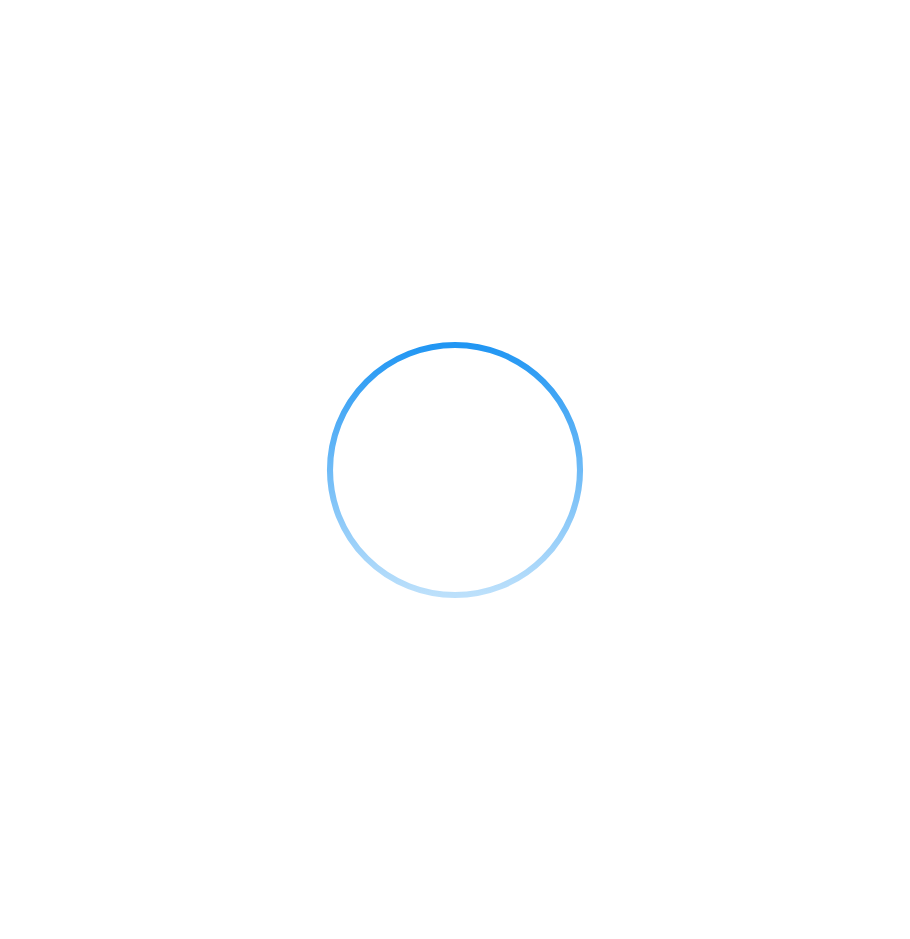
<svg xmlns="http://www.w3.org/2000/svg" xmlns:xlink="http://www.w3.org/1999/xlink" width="910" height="939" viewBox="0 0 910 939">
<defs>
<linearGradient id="g1" gradientUnits="userSpaceOnUse" x1="455" y1="345" x2="455" y2="595"><stop offset="0" stop-color="#2196f3"/><stop offset="1" stop-color="#bce0fb"/></linearGradient>
</defs>
<rect width="100%" height="100%" fill="#ffffff"/>
<circle fill="none" stroke="url(#g1)" stroke-width="6.1" cx="455" cy="470" r="125"/>
</svg>
